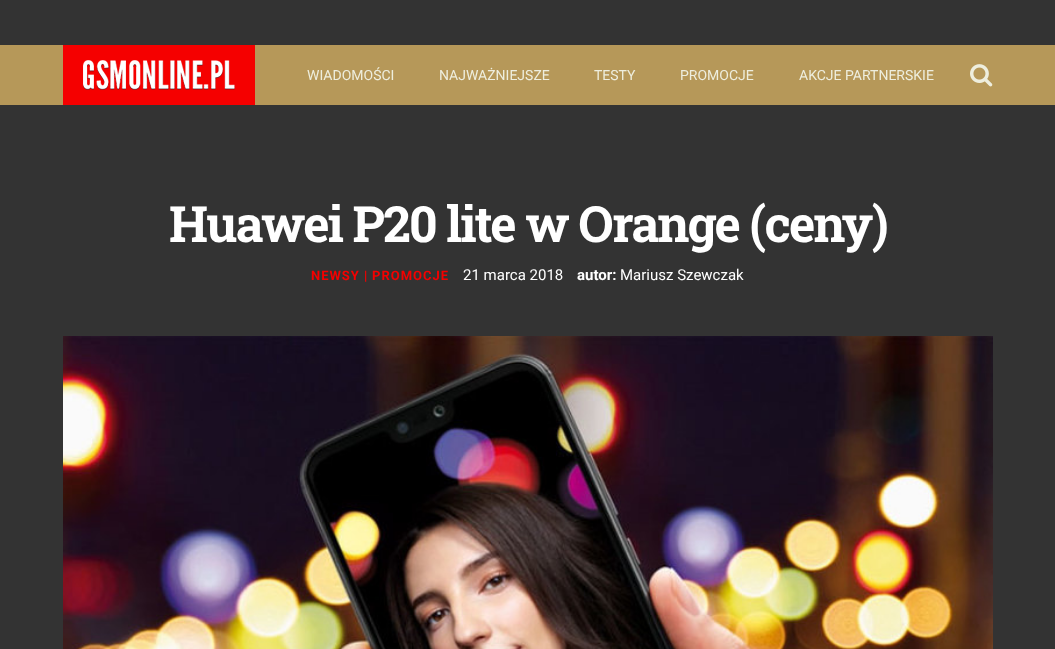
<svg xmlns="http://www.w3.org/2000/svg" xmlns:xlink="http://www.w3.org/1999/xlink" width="1055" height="649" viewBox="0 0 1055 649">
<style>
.cls-1{font:14px Roboto;fill:#eeeede}
.cls-2{font:bold 50px Roboto Slab;letter-spacing:-1.8px;fill:#ffffff}
.cls-3{font:bold 13px Roboto;letter-spacing:1px;fill:#f50000}
.cls-4{font:15px Roboto;fill:#ffffff}
.cls-5{font:bold 15px Roboto;fill:#ffffff}
</style>
<rect width="100%" height="100%" fill="#333333"/>
<rect fill="#b69859" x="0" y="45" width="1055" height="60"/>
<rect fill="#f50000" x="63" y="45" width="192" height="60"/>
<image xlink:href="image0.png" x="83" y="60" width="152" height="30"/>
<image xlink:href="image1.png" x="970" y="64" width="23" height="23"/>
<image xlink:href="image2.png" x="63" y="336" width="930" height="313"/>
<text class="cls-1" x="307" y="80">WIADOMOŚCI</text>
<text class="cls-1" x="439" y="80">NAJWAŻNIEJSZE</text>
<text class="cls-1" x="594" y="80">TESTY</text>
<text class="cls-1" x="680" y="80">PROMOCJE</text>
<text class="cls-1" x="799" y="80">AKCJE PARTNERSKIE</text>
<text class="cls-2" x="169" y="242">Huawei P20 lite w Orange (ceny)</text>
<text class="cls-3" x="311" y="280">NEWSY</text>
<text class="cls-3" x="364" y="280">|</text>
<text class="cls-3" x="372" y="280">PROMOCJE</text>
<text class="cls-4" x="463" y="280">21 marca 2018</text>
<text class="cls-5" x="577" y="280">autor:</text>
<text class="cls-4" x="620" y="280">Mariusz Szewczak</text>
</svg>
